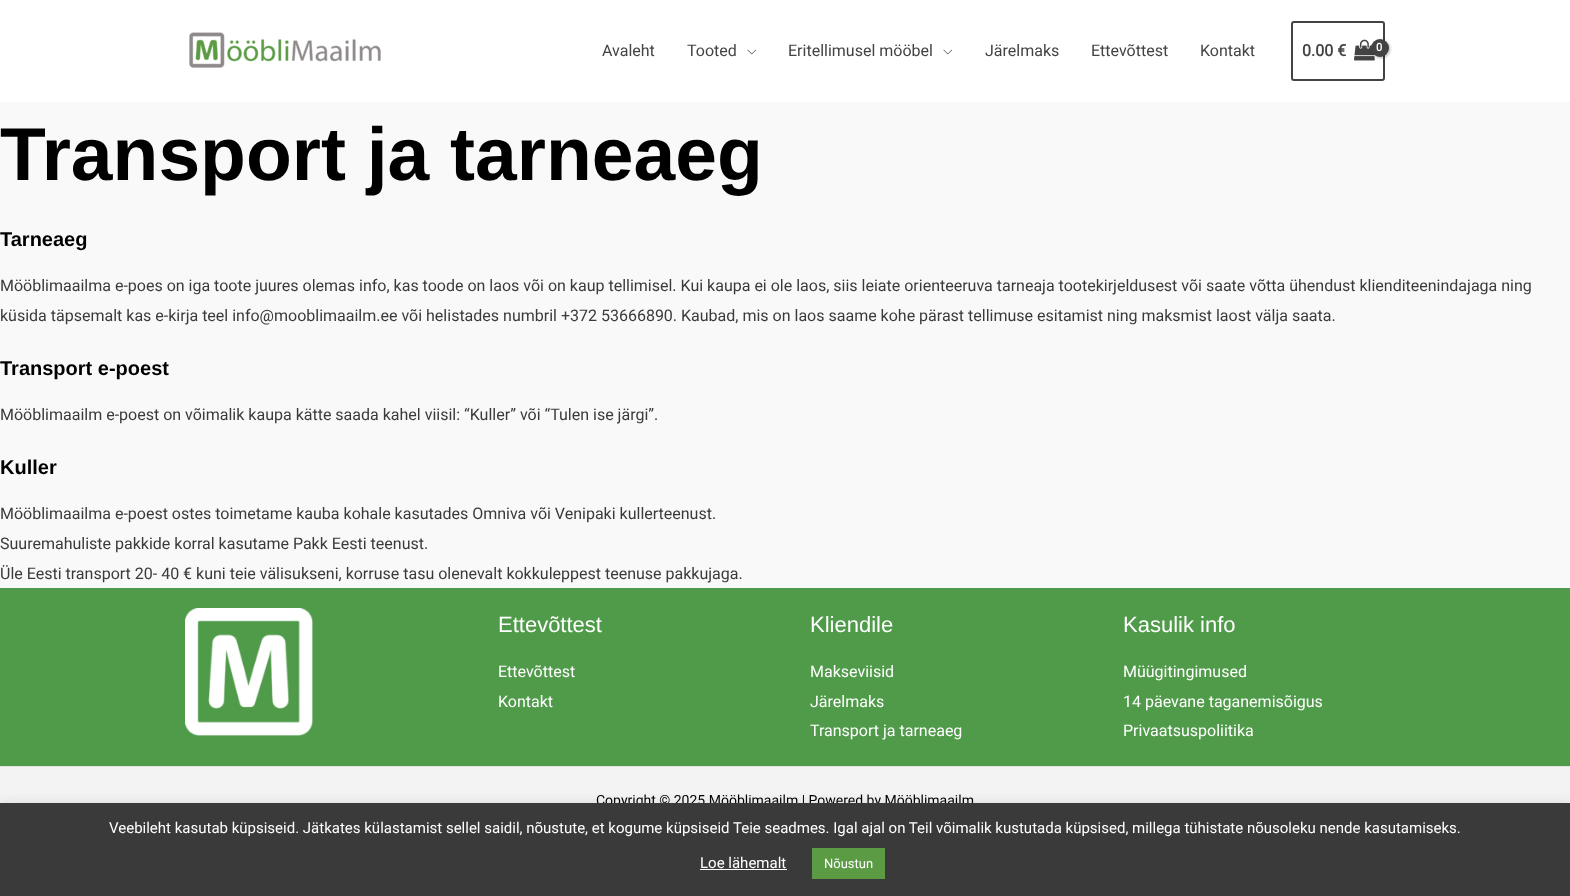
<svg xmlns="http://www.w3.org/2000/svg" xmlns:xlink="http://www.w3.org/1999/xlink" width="1570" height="896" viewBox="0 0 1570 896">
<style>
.cls-1{font:16px Roboto;fill:#434343}
.cls-2{font:bold 16px Roboto;fill:#434343}
.cls-3{font:bold 11px Roboto;fill:#ffffff}
.cls-4{font:bold 75px Liberation Sans;fill:#000000}
.cls-5{font:bold 20px Liberation Sans;fill:#000000}
.cls-6{font:16px Roboto;fill:#3a3a3a}
.cls-7{font:22px Liberation Sans;fill:#ffffff}
.cls-8{font:16px Roboto;fill:#ffffff}
.cls-9{font:14px Roboto;fill:#000000}
.cls-10{font:15px Roboto;fill:#ffffff}
.cls-11{font:13px Roboto;fill:#ffffff}
</style>
<rect width="100%" height="100%" fill="#f9f9f9"/>
<rect fill="#ffffff" x="0" y="0" width="1570" height="102"/>
<image xlink:href="image0.png" x="189" y="32" width="192" height="36"/>
<image xlink:href="image1.png" x="747" y="49" width="9" height="6"/>
<image xlink:href="image1.png" x="943" y="49" width="9" height="6"/>
<rect fill="none" stroke="#434343" stroke-width="2" x="1292" y="22" width="92" height="58" rx="2"/>
<image xlink:href="image2.png" x="1354" y="39" width="21" height="22"/>
<rect fill="#000000" fill-opacity="0.3" filter="blur(1.5px)" x="1372" y="40" width="18" height="18" rx="9"/>
<circle fill="#434343" cx="1380" cy="48" r="9"/>
<rect fill="#509b4a" x="0" y="588" width="1570" height="178"/>
<image xlink:href="image3.png" x="185" y="608" width="128" height="128"/>
<rect fill="#f3f3f4" x="0" y="767" width="1570" height="36"/>
<rect fill="#e4e4e5" x="0" y="766" width="1570" height="1"/>
<rect fill="#acabab" fill-opacity="0.3" filter="blur(5px)" x="0" y="802" width="1570" height="93"/>
<text class="cls-1" x="602" y="56">Avaleht</text>
<text class="cls-1" x="687" y="56">Tooted</text>
<text class="cls-1" x="788" y="56">Eritellimusel mööbel</text>
<text class="cls-1" x="985" y="56">Järelmaks</text>
<text class="cls-1" x="1091" y="56">Ettevõttest</text>
<text class="cls-1" x="1200" y="56">Kontakt</text>
<text class="cls-2" x="1302" y="56">0.00 €</text>
<text class="cls-3" x="1376" y="51">0</text>
<text class="cls-4" x="0" y="180">Transport ja tarneaeg</text>
<text class="cls-5" x="0" y="246">Tarneaeg</text>
<text class="cls-6"><tspan x="0" y="291">Mööblimaailma e-poes on iga toote juures olemas info, kas toode on laos või on kaup tellimisel. Kui kaupa ei ole laos, siis leiate orienteeruva tarneaja tootekirjeldusest või saate võtta ühendust klienditeenindajaga ning</tspan><tspan x="0" y="321">küsida täpsemalt kas e-kirja teel info@mooblimaailm.ee või helistades numbril +372 53666890. Kaubad, mis on laos saame kohe pärast tellimuse esitamist ning maksmist laost välja saata.</tspan></text>
<text class="cls-5" x="0" y="375">Transport e-poest</text>
<text class="cls-6" x="0" y="420">Mööblimaailm e-poest on võimalik kaupa kätte saada kahel viisil: “Kuller” või “Tulen ise järgi”.</text>
<text class="cls-5" x="0" y="474">Kuller</text>
<text class="cls-6"><tspan x="0" y="519">Mööblimaailma e-poest ostes toimetame kauba kohale kasutades Omniva või Venipaki kullerteenust.</tspan><tspan x="0" y="549">Suuremahuliste pakkide korral kasutame Pakk Eesti teenust.</tspan><tspan x="0" y="579">Üle Eesti transport 20- 40 € kuni teie välisukseni, korruse tasu olenevalt kokkuleppest teenuse pakkujaga.</tspan></text>
<text class="cls-7" x="498" y="632">Ettevõttest</text>
<text class="cls-8"><tspan x="498" y="677">Ettevõttest</tspan><tspan x="498" y="707">Kontakt</tspan></text>
<text class="cls-7" x="810" y="632">Kliendile</text>
<text class="cls-8"><tspan x="810" y="677">Makseviisid</tspan><tspan x="810" y="707">Järelmaks</tspan><tspan x="810" y="736">Transport ja tarneaeg</tspan></text>
<text class="cls-7" x="1123" y="632">Kasulik info</text>
<text class="cls-8"><tspan x="1123" y="677">Müügitingimused</tspan><tspan x="1123" y="707">14 päevane taganemisõigus</tspan><tspan x="1123" y="736">Privaatsuspoliitika</tspan></text>
<text class="cls-9" x="596" y="805">Copyright © 2025 Mööblimaailm | Powered by Mööblimaailm</text>
<rect fill="#3a3a3a" x="0" y="803" width="1570" height="93"/>
<text class="cls-10" x="109" y="833">Veebileht kasutab küpsiseid. Jätkates külastamist sellel saidil, nõustute, et kogume küpsiseid Teie seadmes. Igal ajal on Teil võimalik kustutada küpsised, millega tühistate nõusoleku nende kasutamiseks.</text>
<text class="cls-10" x="700" y="868">Loe lähemalt</text>
<rect fill="#ffffff" x="700" y="869" width="87" height="1"/>
<rect fill="#5a9b43" x="812" y="848" width="73" height="31"/>
<text class="cls-11" x="824" y="868">Nõustun</text>
</svg>
